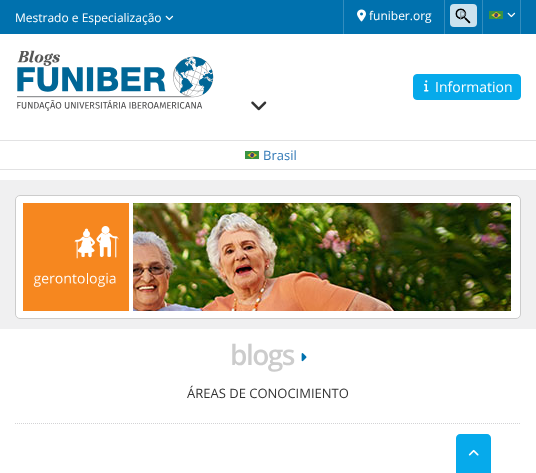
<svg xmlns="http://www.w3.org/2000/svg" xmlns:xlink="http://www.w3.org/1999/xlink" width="536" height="473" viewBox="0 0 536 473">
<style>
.cls-1{font:12px Open Sans;fill:#ffffff}
.cls-2{font:12px Open Sans;fill:#85939b}
.cls-3{font:14px Open Sans;fill:#ffffff}
.cls-4{font:13px Open Sans;fill:#337ab7}
.cls-5{font:600 28px Open Sans;letter-spacing:-1.5px;fill:#cccccc}
.cls-6{font:13px Open Sans;fill:#333333}
</style>
<rect width="100%" height="100%" fill="#ffffff"/>
<rect fill="#0071ae" x="0" y="0" width="536" height="34"/>
<image xlink:href="image0.png" x="165" y="15" width="9" height="6"/>
<rect fill="#338dbe" x="444" y="0" width="1" height="34"/>
<rect fill="#338dbe" x="343" y="0" width="1" height="34"/>
<image xlink:href="image1.png" x="357" y="9" width="9" height="13"/>
<rect fill="#cce2ee" x="450" y="4" width="27" height="23" rx="4"/>
<image xlink:href="image2.png" x="455" y="8" width="16" height="16"/>
<rect fill="#338dbe" x="520" y="0" width="1" height="34"/>
<rect fill="#338dbe" x="482" y="0" width="1" height="34"/>
<image xlink:href="image3.png" x="489" y="11" width="14" height="8"/>
<image xlink:href="image0.png" x="507" y="12" width="9" height="6"/>
<image xlink:href="image4.png" x="17" y="50" width="197" height="61"/>
<rect fill="#06aaeb" stroke="#06aaeb" x="413.5" y="74.5" width="107" height="25" rx="3.5"/>
<image xlink:href="image5.png" x="424" y="80" width="5" height="12"/>
<image xlink:href="image6.png" x="251" y="101" width="16" height="10"/>
<rect fill="#e2e2e3" x="0" y="140" width="536" height="1"/>
<rect fill="#e2e2e3" x="0" y="169" width="536" height="1"/>
<image xlink:href="image3.png" x="245" y="151" width="14" height="8"/>
<rect fill="#f0f0f1" x="0" y="180" width="536" height="149"/>
<rect fill="#ffffff" stroke="#cccccc" x="15.5" y="195.5" width="505" height="123" rx="4.5"/>
<rect fill="#f6871f" x="23" y="203" width="106" height="108"/>
<image xlink:href="image7.png" x="33" y="226" width="86" height="61"/>
<image xlink:href="image8.png" x="133" y="203" width="378" height="108"/>
<path fill="none" stroke="#d3d3d5" stroke-dasharray="1 1" d="M15 423.5H521"/>
<image xlink:href="image9.png" x="301" y="353" width="6" height="9"/>
<path fill="#06aaeb" d="M460 434H487C489 434 491 436 491 438V473H456V438C456 436 458 434 460 434Z"/>
<image xlink:href="image10.png" x="468" y="449" width="11" height="7"/>
<text class="cls-1" x="15" y="22">Mestrado e Especialização</text>
<text class="cls-1" x="369" y="20">funiber.org</text>
<text class="cls-2" x="459" y="20">P</text>
<text class="cls-3" x="435" y="92">Information</text>
<text class="cls-4" x="263" y="160">Brasil</text>
<text class="cls-5" x="230" y="365">blogs</text>
<text class="cls-6" x="187" y="398">ÁREAS DE CONOCIMIENTO</text>
</svg>
